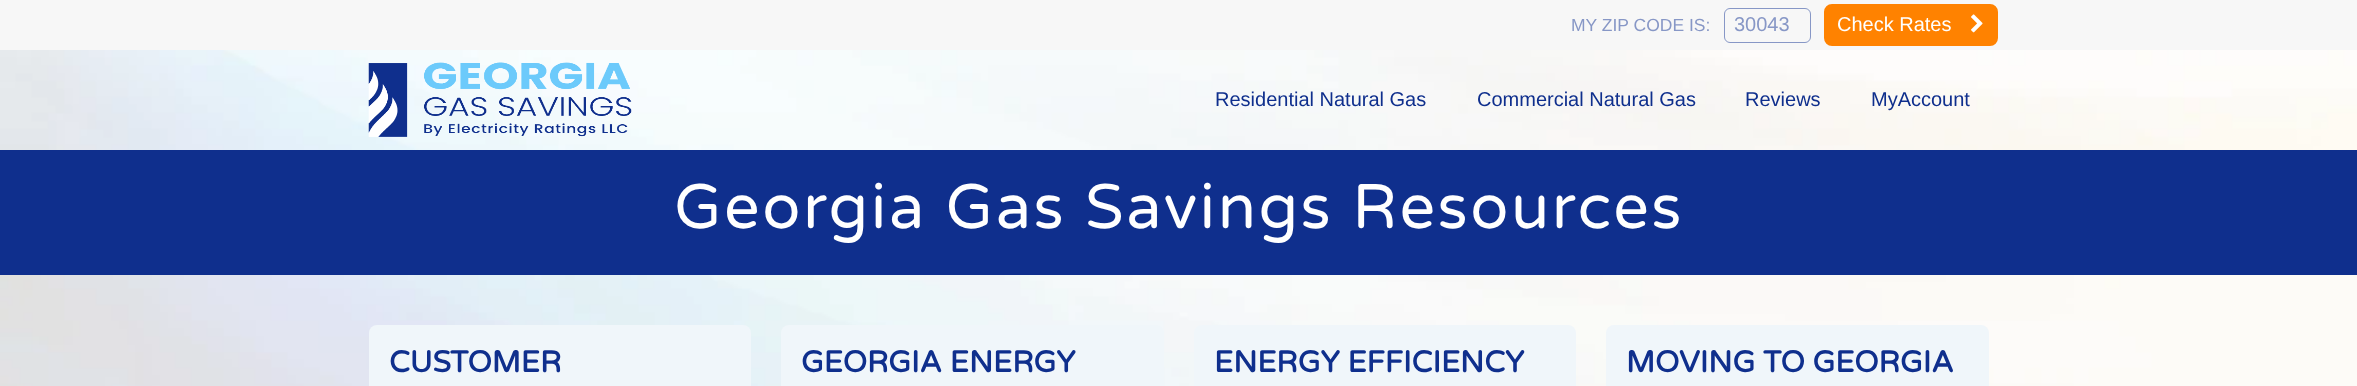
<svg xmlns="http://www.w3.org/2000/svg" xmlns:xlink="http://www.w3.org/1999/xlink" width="2357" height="386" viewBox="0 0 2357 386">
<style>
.cls-1{font:17.5px Liberation Sans;fill:#8797c6}
.cls-2{font:20px Liberation Sans;fill:#8797c6}
.cls-3{font:20px Liberation Sans;fill:#ffffff}
.cls-4{font:20px Liberation Sans;fill:#0f2f8d}
.cls-5{font:62.9px Varela Round;letter-spacing:2.5px;fill:#ffffff}
.cls-6{font:bold 30px Varela Round;fill:#0f2f8d}
</style>
<rect width="100%" height="100%" fill="#ffffff"/>
<image xlink:href="image0.png" x="0" y="50" width="2357" height="336"/>
<rect fill="#f7f7f7" x="0" y="0" width="2357" height="50"/>
<rect fill="none" stroke="#8797c6" x="1724.5" y="8.5" width="86" height="34" rx="5.5"/>
<rect fill="#ff8200" stroke="#ff8200" stroke-width="4" x="1826" y="6" width="170" height="38" rx="6"/>
<image xlink:href="image1.png" x="1971" y="14" width="12" height="19"/>
<image xlink:href="image2.png" x="368" y="62" width="264" height="75"/>
<rect fill="#0f2f8d" x="0" y="150" width="2357" height="125"/>
<rect fill="#f0f6fa" x="369" y="325" width="382" height="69" rx="8"/>
<rect fill="#f0f6fa" x="781" y="325" width="383" height="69" rx="8"/>
<rect fill="#f0f6fa" x="1194" y="325" width="382" height="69" rx="8"/>
<rect fill="#f0f6fa" x="1606" y="325" width="383" height="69" rx="8"/>
<text class="cls-1" x="1571" y="31">MY ZIP CODE IS:</text>
<text class="cls-2" x="1734" y="31">30043</text>
<text class="cls-3" x="1837" y="31">Check Rates</text>
<text class="cls-4" x="1215" y="106">Residential Natural Gas</text>
<text class="cls-4" x="1477" y="106">Commercial Natural Gas</text>
<text class="cls-4" x="1745" y="106">Reviews</text>
<text class="cls-4" x="1871" y="106">MyAccount</text>
<text class="cls-5" x="674" y="228">Georgia Gas Savings Resources</text>
<text class="cls-6" x="389" y="372">CUSTOMER</text>
<text class="cls-6" x="801" y="372">GEORGIA ENERGY</text>
<text class="cls-6" x="1214" y="372">ENERGY EFFICIENCY</text>
<text class="cls-6" x="1626" y="372">MOVING TO GEORGIA</text>
</svg>
